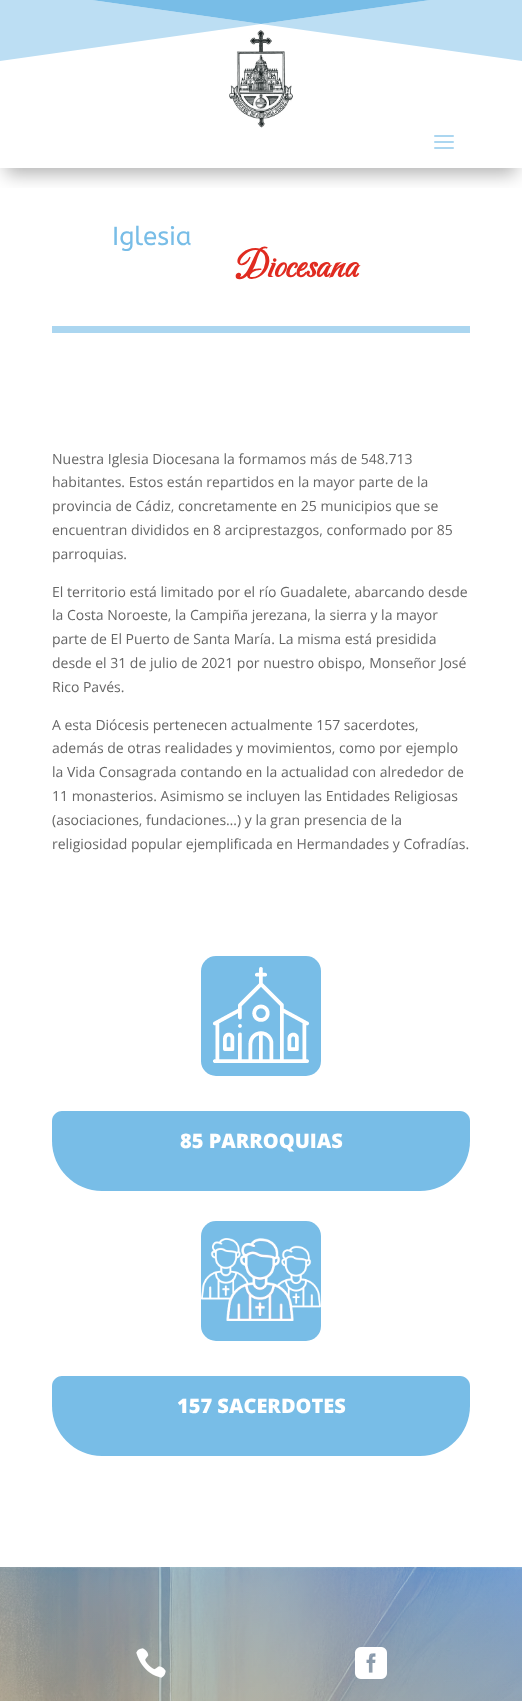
<svg xmlns="http://www.w3.org/2000/svg" xmlns:xlink="http://www.w3.org/1999/xlink" width="522" height="1701" viewBox="0 0 522 1701">
<style>
.cls-1{font:26px ABeeZee;fill:#78bde7}
.cls-2{font:bold 39px Carattere;fill:#e02b20}
.cls-3{font:14px Open Sans;fill:#666666}
.cls-4{font:800 20px Open Sans;fill:#ffffff}
</style>
<defs>
<clipPath id="clip1"><rect x="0" y="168" width="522" height="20"/></clipPath>
</defs>
<rect width="100%" height="100%" fill="#ffffff"/>
<g clip-path="url(#clip1)">
<rect fill="#000000" fill-opacity="0.3" filter="blur(9px)" x="6" y="5" width="510" height="169"/>
</g>
<path fill="#bcdef3" d="M522-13L261 24L0-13V61L261 24L522 61Z"/>
<path fill="#78bde7" d="M522-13H0L261 24Z"/>
<image xlink:href="image0.png" x="229" y="30" width="64" height="98"/>
<image xlink:href="image1.png" x="434" y="135" width="20" height="14"/>
<rect fill="#abd6f0" x="52" y="326" width="418" height="7"/>
<rect fill="#78bde7" x="201" y="956" width="120" height="120" rx="15"/>
<image xlink:href="image2.png" x="213" y="967" width="96" height="96"/>
<path fill="#78bde7" d="M62 1111H460C465.5 1111 470 1115.5 470 1121V1141C470 1168.5 447.5 1191 420 1191H102C74.5 1191 52 1168.5 52 1141V1121C52 1115.5 56.5 1111 62 1111Z"/>
<rect fill="#78bde7" x="201" y="1221" width="120" height="120" rx="15"/>
<image xlink:href="image3.png" x="201" y="1238" width="120" height="83"/>
<path fill="#78bde7" d="M62 1376H460C465.5 1376 470 1380.5 470 1386V1406C470 1433.5 447.5 1456 420 1456H102C74.5 1456 52 1433.5 52 1406V1386C52 1380.5 56.5 1376 62 1376Z"/>
<image xlink:href="image4.png" x="0" y="1567" width="522" height="134"/>
<image xlink:href="image5.png" x="136" y="1648" width="30" height="30"/>
<image xlink:href="image6.png" x="355" y="1647" width="32" height="32"/>
<text class="cls-1" x="112" y="245">Iglesia</text>
<text class="cls-2" x="237" y="277">Diocesana</text>
<text class="cls-3"><tspan x="52" y="464">Nuestra Iglesia Diocesana la formamos más de 548.713</tspan><tspan x="52" y="487">habitantes. Estos están repartidos en la mayor parte de la</tspan><tspan x="52" y="511">provincia de Cádiz, concretamente en 25 municipios que se</tspan><tspan x="52" y="535">encuentran divididos en 8 arciprestazgos, conformado por 85</tspan><tspan x="52" y="559">parroquias.</tspan></text>
<text class="cls-3"><tspan x="52" y="597">El territorio está limitado por el río Guadalete, abarcando desde</tspan><tspan x="52" y="620">la Costa Noroeste, la Campiña jerezana, la sierra y la mayor</tspan><tspan x="52" y="644">parte de El Puerto de Santa María. La misma está presidida</tspan><tspan x="52" y="668">desde el 31 de julio de 2021 por nuestro obispo, Monseñor José</tspan><tspan x="52" y="692">Rico Pavés.</tspan></text>
<text class="cls-3"><tspan x="52" y="730">A esta Diócesis pertenecen actualmente 157 sacerdotes,</tspan><tspan x="52" y="753">además de otras realidades y movimientos, como por ejemplo</tspan><tspan x="52" y="777">la Vida Consagrada contando en la actualidad con alrededor de</tspan><tspan x="52" y="801">11 monasterios. Asimismo se incluyen las Entidades Religiosas</tspan><tspan x="52" y="825">(asociaciones, fundaciones…) y la gran presencia de la</tspan><tspan x="52" y="849">religiosidad popular ejemplificada en Hermandades y Cofradías.</tspan></text>
<text class="cls-4" x="180" y="1148">85 PARROQUIAS</text>
<text class="cls-4" x="177" y="1413">157 SACERDOTES</text>
</svg>
